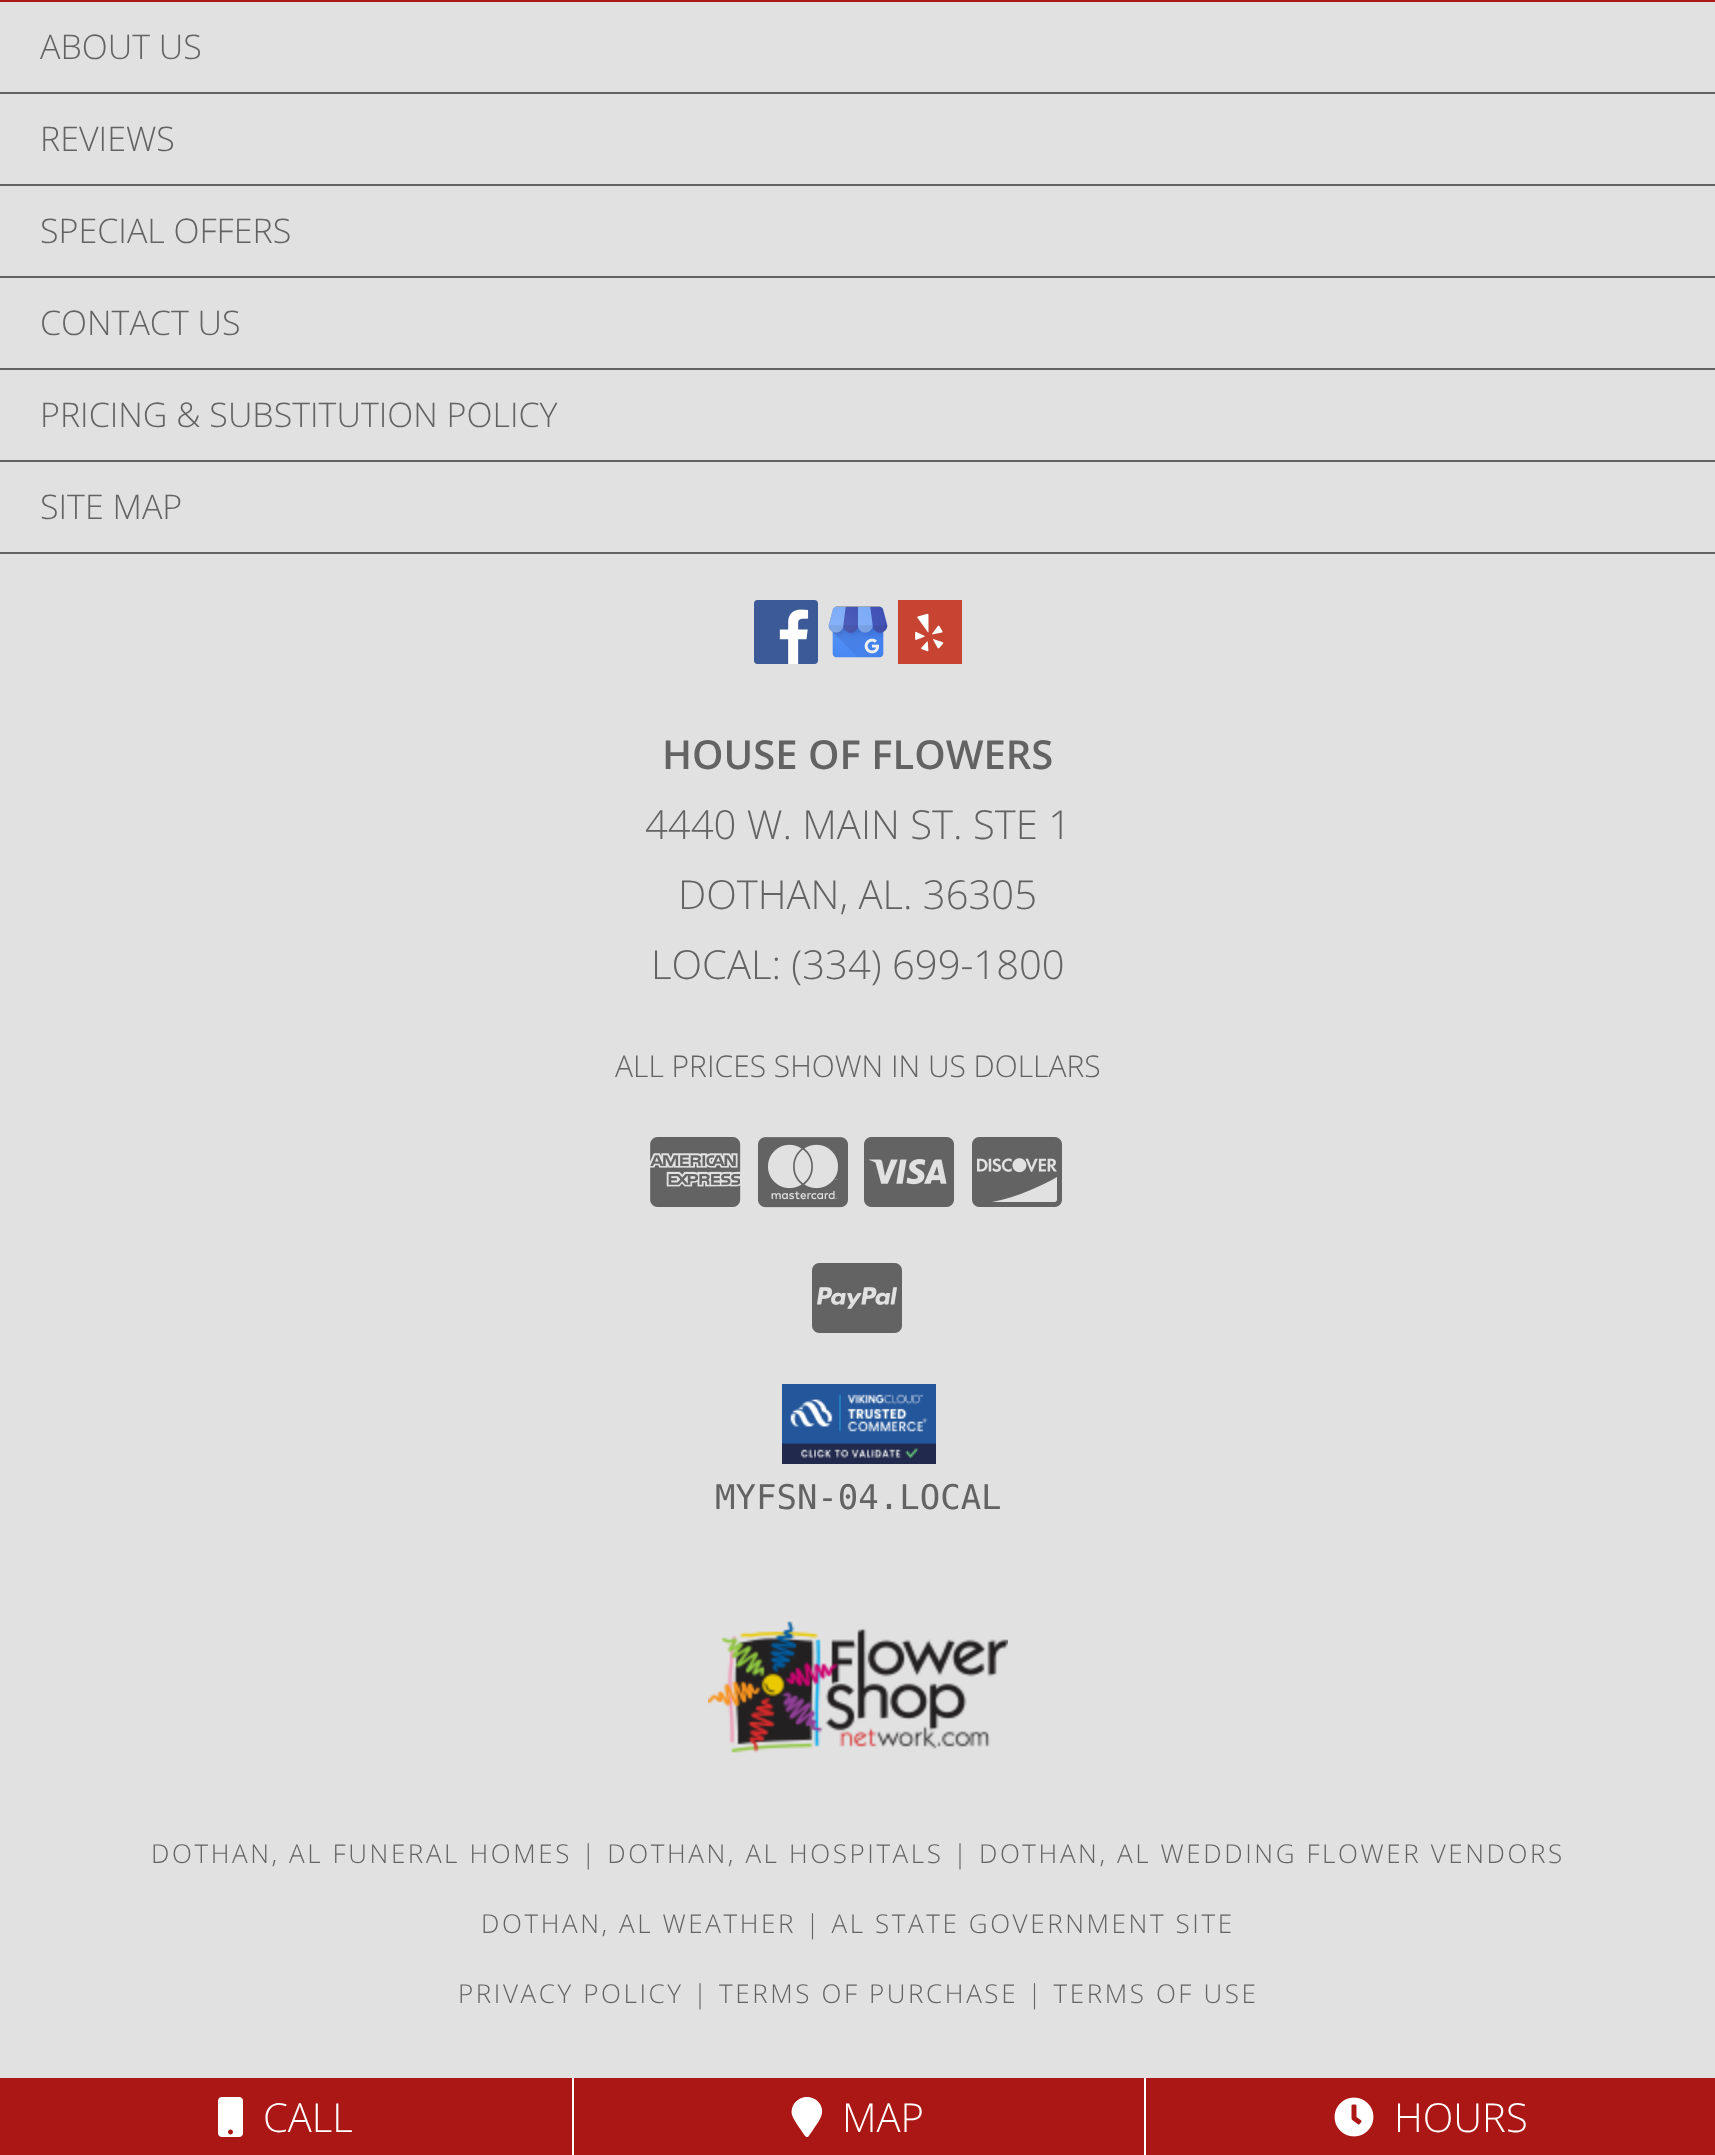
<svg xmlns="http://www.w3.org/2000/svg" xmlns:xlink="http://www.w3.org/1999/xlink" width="1715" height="2155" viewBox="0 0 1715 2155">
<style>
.cls-1{font:300 34px Open Sans;fill:#636363}
.cls-2{font:600 40px Open Sans;fill:#636363}
.cls-3{font:300 40px Open Sans;fill:#636363}
.cls-4{font:300 30px Open Sans;fill:#636363}
.cls-5{font:34px DejaVu Sans Mono;fill:#636363}
.cls-6{font:300 26px Open Sans;letter-spacing:2.6px;fill:#636363}
.cls-7{font:300 40px Open Sans;fill:#ffffff}
</style>
<rect width="100%" height="100%" fill="#aa1714"/>
<rect fill="#e1e1e1" x="0" y="2" width="1715" height="2076"/>
<rect fill="#636363" x="0" y="92" width="1715" height="2"/>
<rect fill="#636363" x="0" y="184" width="1715" height="2"/>
<rect fill="#636363" x="0" y="276" width="1715" height="2"/>
<rect fill="#636363" x="0" y="368" width="1715" height="2"/>
<rect fill="#636363" x="0" y="460" width="1715" height="2"/>
<rect fill="#636363" x="0" y="552" width="1715" height="2"/>
<image xlink:href="image0.png" x="754" y="600" width="64" height="64"/>
<image xlink:href="image1.png" x="828" y="606" width="60" height="52"/>
<image xlink:href="image2.png" x="898" y="600" width="64" height="64"/>
<image xlink:href="image3.png" x="650" y="1137" width="91" height="70"/>
<image xlink:href="image4.png" x="758" y="1137" width="90" height="71"/>
<image xlink:href="image5.png" x="864" y="1137" width="90" height="70"/>
<image xlink:href="image6.png" x="972" y="1137" width="90" height="70"/>
<image xlink:href="image7.png" x="812" y="1263" width="90" height="70"/>
<image xlink:href="image8.png" x="782" y="1384" width="154" height="80"/>
<image xlink:href="image9.png" x="708" y="1621" width="300" height="132"/>
<image xlink:href="image10.png" x="218" y="2097" width="25" height="40"/>
<rect fill="#ffffff" x="572" y="2078" width="2" height="77"/>
<path fill="#ffffff" d="M805 2136C802 2131 794 2121 792 2115C789 2099 810 2090 820 2104C826 2114 818 2122 813 2130L808 2137C807 2137 806 2137 805 2136Z"/>
<rect fill="#ffffff" x="1144" y="2078" width="2" height="77"/>
<image xlink:href="image11.png" x="1334" y="2097" width="40" height="40"/>
<text class="cls-1" x="40" y="59">ABOUT US</text>
<text class="cls-1" x="40" y="151">REVIEWS</text>
<text class="cls-1" x="40" y="243">SPECIAL OFFERS</text>
<text class="cls-1" x="40" y="335">CONTACT US</text>
<text class="cls-1" x="40" y="427">PRICING &amp; SUBSTITUTION POLICY</text>
<text class="cls-1" x="40" y="519">SITE MAP</text>
<text class="cls-2" x="662" y="769">HOUSE OF FLOWERS</text>
<text class="cls-3" x="645" y="839">4440 W. MAIN ST. STE 1</text>
<text class="cls-3" x="678" y="909">DOTHAN, AL. 36305</text>
<text class="cls-3" x="651" y="979">LOCAL: (334) 699-1800</text>
<text class="cls-4" x="615" y="1077">ALL PRICES SHOWN IN US DOLLARS</text>
<text class="cls-5" x="715" y="1509">MYFSN-04.LOCAL</text>
<text class="cls-6" x="151" y="1863">DOTHAN, AL FUNERAL HOMES | DOTHAN, AL HOSPITALS | DOTHAN, AL WEDDING FLOWER VENDORS</text>
<text class="cls-6" x="481" y="1933">DOTHAN, AL WEATHER | AL STATE GOVERNMENT SITE</text>
<text class="cls-6" x="458" y="2003">PRIVACY POLICY | TERMS OF PURCHASE | TERMS OF USE</text>
<text class="cls-7" x="263" y="2132">CALL</text>
<text class="cls-7" x="842" y="2132">MAP</text>
<text class="cls-7" x="1394" y="2132">HOURS</text>
</svg>
